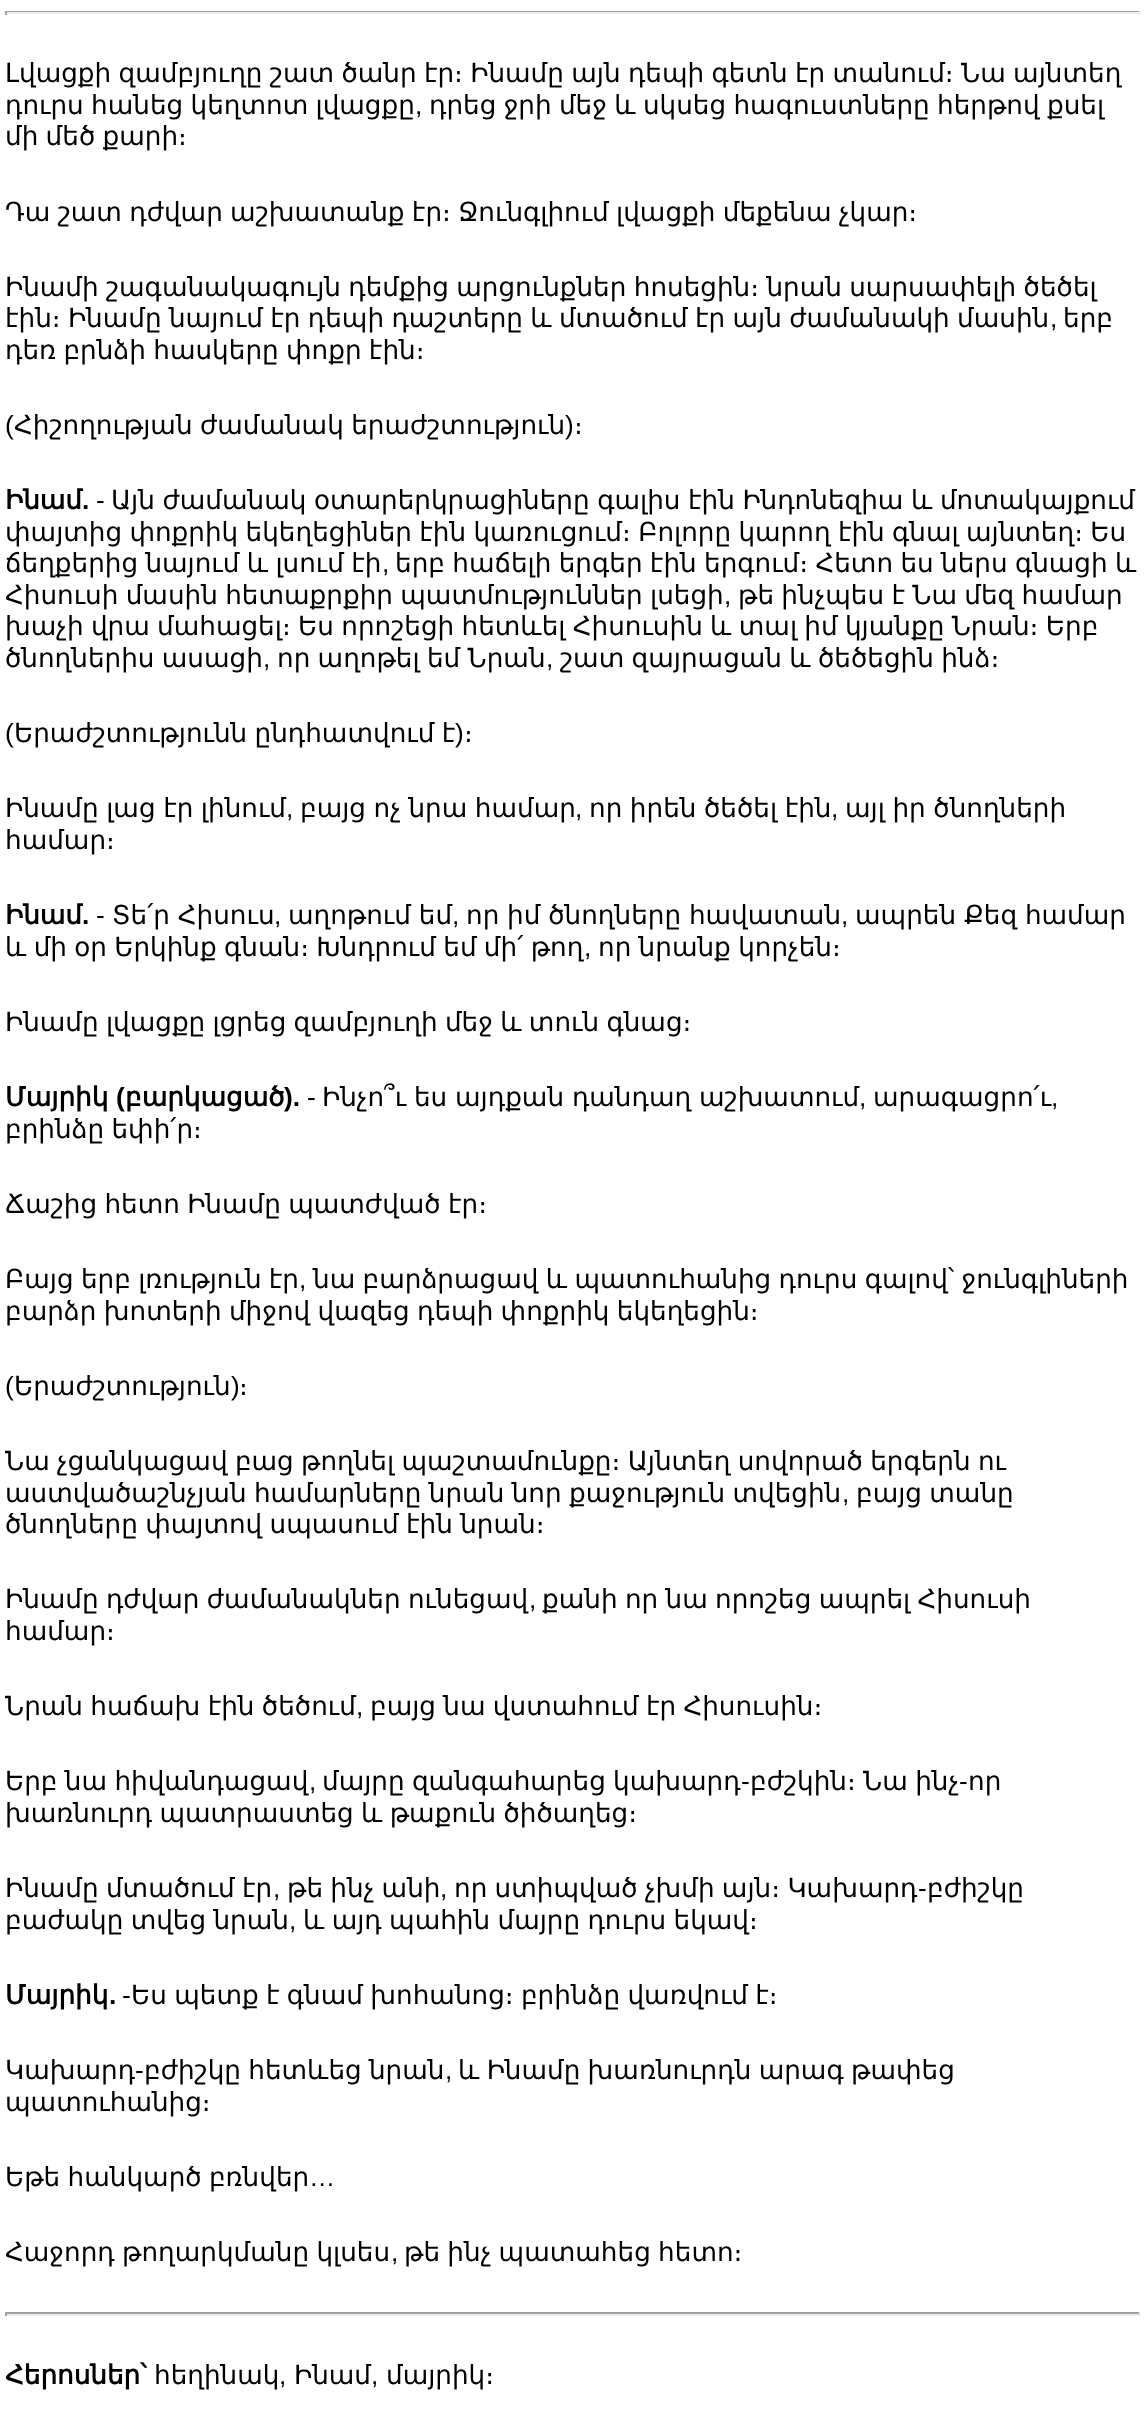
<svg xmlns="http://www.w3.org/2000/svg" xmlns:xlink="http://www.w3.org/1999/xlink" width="1146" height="2429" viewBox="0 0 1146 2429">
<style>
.cls-1{font:26.25px DejaVu Sans;fill:#000000}
.cls-2{font:26.25px Liberation Sans;fill:#000000}
.cls-3{font:bold 26.25px DejaVu Sans;fill:#000000}
.cls-4{font:bold 26.25px Liberation Sans;fill:#000000}
</style>
<rect width="100%" height="100%" fill="#ffffff"/>
<rect fill="#9f9f9f" x="5" y="11" width="1136" height="1"/>
<rect fill="#eeeeee" x="1139" y="11" width="2" height="4"/>
<rect fill="#eeeeee" x="5" y="12" width="1136" height="2"/>
<rect fill="#9f9f9f" x="5" y="11" width="2" height="4"/>
<rect fill="#9f9f9f" x="5" y="2312" width="1136" height="2"/>
<rect fill="#eeeeee" x="1139" y="2312" width="2" height="4"/>
<rect fill="#eeeeee" x="5" y="2314" width="1136" height="2"/>
<rect fill="#9f9f9f" x="5" y="2312" width="2" height="4"/>
<text class="cls-1"><tspan x="5" y="82" word-spacing="-1">Լվացքի զամբյուղը շատ ծանր էր։ Ինամը այն դեպի գետն էր տանում։ Նա այնտեղ</tspan><tspan x="5" y="114" word-spacing="-1">դուրս հանեց կեղտոտ լվացքը</tspan></text>
<text class="cls-2" x="415" y="114">,</text>
<text class="cls-1" x="429" y="114" word-spacing="-1">դրեց ջրի մեջ և սկսեց հագուստները հերթով քսել</text>
<text class="cls-1" x="5" y="145" word-spacing="-1">մի մեծ քարի։</text>
<text class="cls-1" x="5" y="221" word-spacing="-1">Դա շատ դժվար աշխատանք էր։ Ջունգլիում լվացքի մեքենա չկար։</text>
<text class="cls-1"><tspan x="5" y="296" word-spacing="-1">Ինամի շագանակագույն դեմքից արցունքներ հոսեցին։ նրան սարսափելի ծեծել</tspan><tspan x="5" y="327" word-spacing="-1">էին։ Ինամը նայում էր դեպի դաշտերը և մտածում էր այն ժամանակի մասին</tspan></text>
<text class="cls-2" x="1050" y="327">,</text>
<text class="cls-1" x="1063" y="327">երբ</text>
<text class="cls-1" x="5" y="359" word-spacing="-1">դեռ բրնձի հասկերը փոքր էին։</text>
<text class="cls-2" x="5" y="434">(</text>
<text class="cls-1" x="14" y="434" word-spacing="-1">Հիշողության ժամանակ երաժշտություն</text>
<text class="cls-2" x="565" y="434">)</text>
<text class="cls-1" x="574" y="434">։</text>
<text class="cls-3" x="5" y="509">Ինամ</text>
<text class="cls-2" x="96" y="509">-</text>
<text class="cls-1" x="111" y="509" word-spacing="-0.75">Այն ժամանակ օտարերկրացիները գալիս էին Ինդոնեզիա և մոտակայքում</text>
<text class="cls-4" x="82" y="509">.</text>
<text class="cls-1"><tspan x="5" y="541" word-spacing="-1">փայտից փոքրիկ եկեղեցիներ էին կառուցում։ Բոլորը կարող էին գնալ այնտեղ։ Ես</tspan><tspan x="5" y="572" word-spacing="-1">ճեղքերից նայում և լսում էի</tspan></text>
<text class="cls-2" x="382" y="572">,</text>
<text class="cls-1" x="395" y="572" word-spacing="-1">երբ հաճելի երգեր էին երգում։ Հետո ես ներս գնացի և</text>
<text class="cls-1" x="5" y="604" word-spacing="-1">Հիսուսի մասին հետաքրքիր պատմություններ լսեցի</text>
<text class="cls-2" x="724" y="604">,</text>
<text class="cls-1" x="738" y="604" word-spacing="-1">թե ինչպես է Նա մեզ համար</text>
<text class="cls-1"><tspan x="5" y="635" word-spacing="-1">խաչի վրա մահացել։ Ես որոշեցի հետևել Հիսուսին և տալ իմ կյանքը Նրան։ Երբ</tspan><tspan x="5" y="667" word-spacing="-1">ծնողներիս ասացի</tspan></text>
<text class="cls-2" x="263" y="667">,</text>
<text class="cls-1" x="277" y="667" word-spacing="-1">որ աղոթել եմ Նրան</text>
<text class="cls-2" x="546" y="667">,</text>
<text class="cls-1" x="560" y="667" word-spacing="-1">շատ զայրացան և ծեծեցին ինձ։</text>
<text class="cls-2" x="5" y="742">(</text>
<text class="cls-1" x="14" y="742" word-spacing="-1">Երաժշտությունն ընդհատվում է</text>
<text class="cls-2" x="455" y="742">)</text>
<text class="cls-1" x="464" y="742">։</text>
<text class="cls-1" x="5" y="817" word-spacing="-0.75">Ինամը լաց էր լինում</text>
<text class="cls-2" x="286" y="817">,</text>
<text class="cls-1" x="300" y="817" word-spacing="-0.75">բայց ոչ նրա համար</text>
<text class="cls-2" x="575" y="817">,</text>
<text class="cls-1" x="589" y="817" word-spacing="-0.75">որ իրեն ծեծել էին</text>
<text class="cls-2" x="831" y="817">,</text>
<text class="cls-1" x="845" y="817" word-spacing="-0.75">այլ իր ծնողների</text>
<text class="cls-1" x="5" y="849">համար։</text>
<text class="cls-3" x="5" y="924">Ինամ</text>
<text class="cls-2" x="96" y="924">-</text>
<text class="cls-1" x="112" y="924" word-spacing="-0.5">Տե՛ր Հիսուս</text>
<text class="cls-1" x="288" y="924" word-spacing="-0.5">աղոթում եմ</text>
<text class="cls-1" x="466" y="924" word-spacing="-0.5">որ իմ ծնողները հավատան</text>
<text class="cls-1" x="855" y="924" word-spacing="-0.5">ապրեն Քեզ համար</text>
<text class="cls-4" x="82" y="924">.</text>
<text class="cls-2" x="274" y="924">,</text>
<text class="cls-2" x="452" y="924">,</text>
<text class="cls-2" x="841" y="924">,</text>
<text class="cls-1" x="5" y="956" word-spacing="-1">և մի օր Երկինք գնան։ Խնդրում եմ մի՛ թող</text>
<text class="cls-2" x="584" y="956">,</text>
<text class="cls-1" x="598" y="956" word-spacing="-1">որ նրանք կորչեն։</text>
<text class="cls-1" x="5" y="1031" word-spacing="-1">Ինամը լվացքը լցրեց զամբյուղի մեջ և տուն գնաց։</text>
<text class="cls-3" x="5" y="1106">Մայրիկ</text>
<text class="cls-4" x="116" y="1106">(</text>
<text class="cls-3" x="125" y="1106">բարկացած</text>
<text class="cls-4" x="284" y="1106">).</text>
<text class="cls-2" x="307" y="1106">-</text>
<text class="cls-1" x="322" y="1106" word-spacing="-0.5">Ինչո՞ւ ես այդքան դանդաղ աշխատում</text>
<text class="cls-1" x="873" y="1106">արագացրո՛ւ</text>
<text class="cls-2" x="859" y="1106">,</text>
<text class="cls-2" x="1051" y="1106">,</text>
<text class="cls-1" x="5" y="1138" word-spacing="-1">բրինձը եփի՛ր։</text>
<text class="cls-1" x="5" y="1213" word-spacing="-1">Ճաշից հետո Ինամը պատժված էր։</text>
<text class="cls-1" x="5" y="1288" word-spacing="-1">Բայց երբ լռություն էր</text>
<text class="cls-2" x="299" y="1288">,</text>
<text class="cls-1" x="313" y="1288" word-spacing="-1">նա բարձրացավ և պատուհանից դուրս գալով՝ ջունգլիների</text>
<text class="cls-1" x="5" y="1320" word-spacing="-1">բարձր խոտերի միջով վազեց դեպի փոքրիկ եկեղեցին։</text>
<text class="cls-2" x="5" y="1395">(</text>
<text class="cls-1" x="14" y="1395">Երաժշտություն</text>
<text class="cls-2" x="231" y="1395">)</text>
<text class="cls-1" x="239" y="1395">։</text>
<text class="cls-1"><tspan x="5" y="1470" word-spacing="-1">Նա չցանկացավ բաց թողնել պաշտամունքը։ Այնտեղ սովորած երգերն ու</tspan><tspan x="5" y="1502" word-spacing="-1">աստվածաշնչյան համարները նրան նոր քաջություն տվեցին</tspan></text>
<text class="cls-2" x="842" y="1502">,</text>
<text class="cls-1" x="856" y="1502" word-spacing="-1">բայց տանը</text>
<text class="cls-1" x="5" y="1533" word-spacing="-1">ծնողները փայտով սպասում էին նրան։</text>
<text class="cls-1" x="5" y="1608" word-spacing="-1">Ինամը դժվար ժամանակներ ունեցավ</text>
<text class="cls-2" x="529" y="1608">,</text>
<text class="cls-1" x="542" y="1608" word-spacing="-1">քանի որ նա որոշեց ապրել Հիսուսի</text>
<text class="cls-1" x="5" y="1640">համար։</text>
<text class="cls-1" x="5" y="1715" word-spacing="-1">Նրան հաճախ էին ծեծում</text>
<text class="cls-2" x="356" y="1715">,</text>
<text class="cls-1" x="370" y="1715" word-spacing="-1">բայց նա վստահում էր Հիսուսին։</text>
<text class="cls-1" x="5" y="1790" word-spacing="-1">Երբ նա հիվանդացավ</text>
<text class="cls-1" x="322" y="1790" word-spacing="-1">մայրը զանգահարեց կախարդ</text>
<text class="cls-2" x="741" y="1790">-</text>
<text class="cls-1" x="750" y="1790" word-spacing="-1">բժշկին։ Նա ինչ</text>
<text class="cls-2" x="959" y="1790">-</text>
<text class="cls-1" x="968" y="1790">որ</text>
<text class="cls-2" x="309" y="1790">,</text>
<text class="cls-1" x="5" y="1822" word-spacing="-1">խառնուրդ պատրաստեց և թաքուն ծիծաղեց։</text>
<text class="cls-1" x="5" y="1897" word-spacing="-1">Ինամը մտածում էր</text>
<text class="cls-1" x="287" y="1897" word-spacing="-1">թե ինչ անի</text>
<text class="cls-1" x="454" y="1897" word-spacing="-1">որ ստիպված չխմի այն։ Կախարդ</text>
<text class="cls-2" x="918" y="1897">-</text>
<text class="cls-1" x="927" y="1897">բժիշկը</text>
<text class="cls-2" x="273" y="1897">,</text>
<text class="cls-2" x="440" y="1897">,</text>
<text class="cls-1" x="5" y="1929" word-spacing="-1">բաժակը տվեց նրան</text>
<text class="cls-2" x="289" y="1929">,</text>
<text class="cls-1" x="303" y="1929" word-spacing="-1">և այդ պահին մայրը դուրս եկավ։</text>
<text class="cls-3" x="5" y="2004">Մայրիկ</text>
<text class="cls-2" x="122" y="2004">-</text>
<text class="cls-1" x="131" y="2004" word-spacing="-1">Ես պետք է գնամ խոհանոց։ բրինձը վառվում է։</text>
<text class="cls-4" x="109" y="2004">.</text>
<text class="cls-1" x="5" y="2079">Կախարդ</text>
<text class="cls-2" x="135" y="2079">-</text>
<text class="cls-1" x="144" y="2079" word-spacing="-1">բժիշկը հետևեց նրան</text>
<text class="cls-1" x="458" y="2079" word-spacing="-1">և Ինամը խառնուրդն արագ թափեց</text>
<text class="cls-2" x="445" y="2079">,</text>
<text class="cls-1" x="5" y="2111">պատուհանից։</text>
<text class="cls-1" x="5" y="2186" word-spacing="-1">Եթե հանկարծ բռնվեր</text>
<text class="cls-2" x="309" y="2186">…</text>
<text class="cls-1" x="5" y="2261" word-spacing="-1">Հաջորդ թողարկմանը կլսես</text>
<text class="cls-2" x="391" y="2261">,</text>
<text class="cls-1" x="404" y="2261" word-spacing="-1">թե ինչ պատահեց հետո։</text>
<text class="cls-3" x="5" y="2384">Հերոսներ՝</text>
<text class="cls-1" x="154" y="2384">հեղինակ</text>
<text class="cls-2" x="279" y="2384">,</text>
<text class="cls-1" x="294" y="2384">Ինամ</text>
<text class="cls-2" x="371" y="2384">,</text>
<text class="cls-1" x="386" y="2384">մայրիկ։</text>
</svg>
